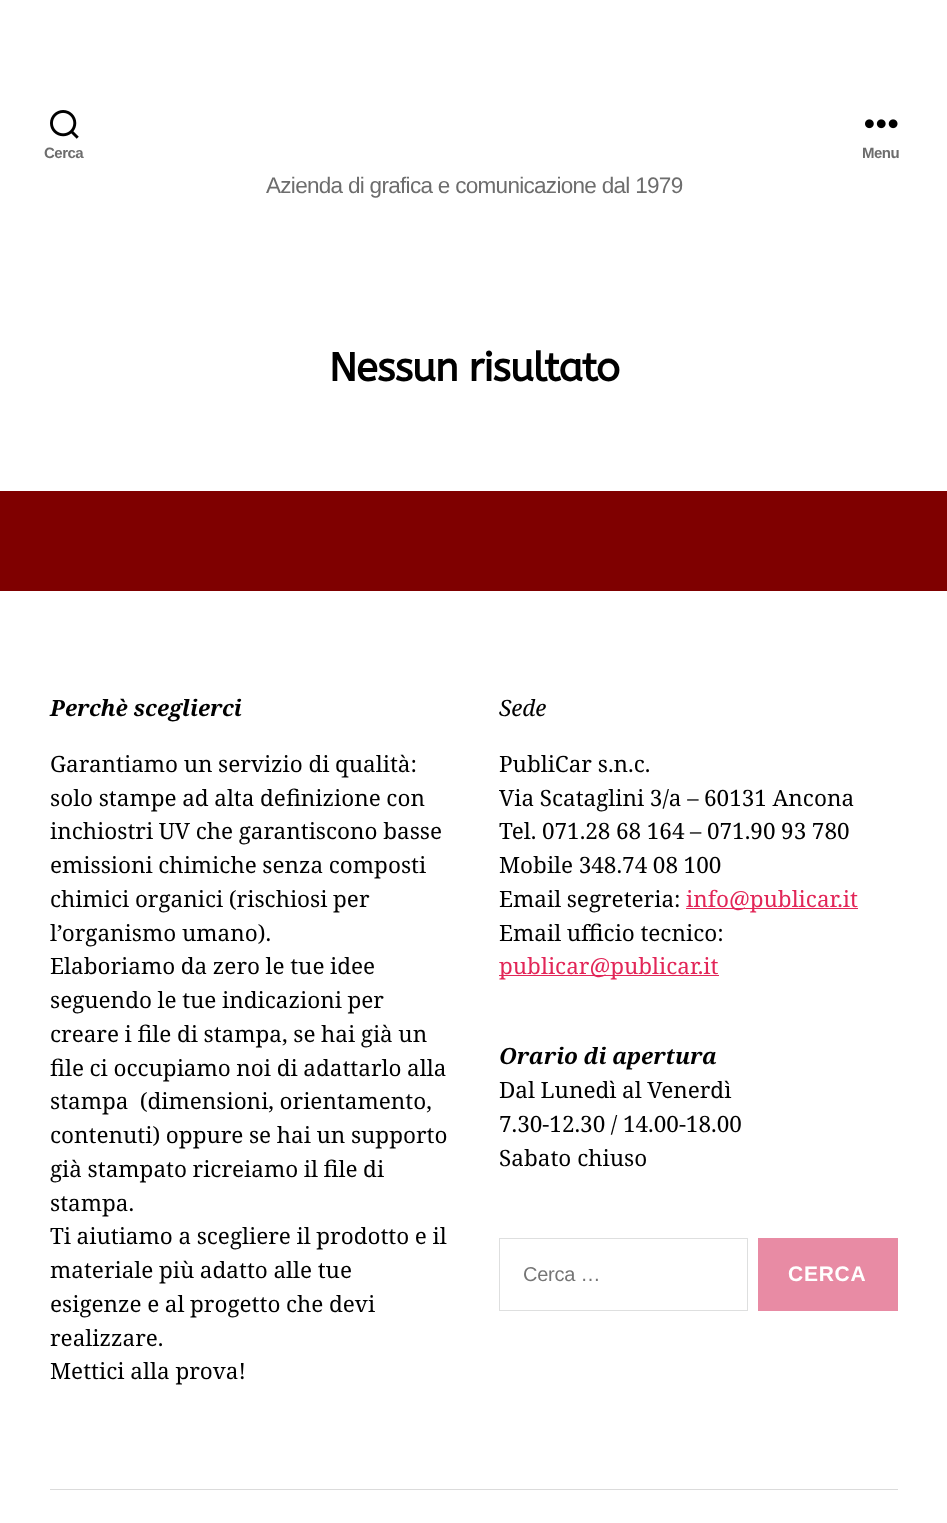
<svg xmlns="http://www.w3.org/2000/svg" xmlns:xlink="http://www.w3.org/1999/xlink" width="947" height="1523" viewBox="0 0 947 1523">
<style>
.cls-1{font:bold 15px Liberation Sans;letter-spacing:-0.5px;fill:#6d6d6d}
.cls-2{font:22.5px Liberation Sans;letter-spacing:-0.7px;fill:#6d6d6d}
.cls-3{font:bold 40px ABeeZee;letter-spacing:-1.1px;fill:#000000}
.cls-4{font:italic bold 22.5px Noto Serif;fill:#000000}
.cls-5{font:22.5px Noto Serif;fill:#000000}
.cls-6{font:italic 22.5px Noto Serif;fill:#000000}
.cls-7{font:22.5px Noto Serif;fill:#e22658}
.cls-8{font:20px Liberation Sans;letter-spacing:-0.25px;fill:#757575}
.cls-9{font:bold 21px Liberation Sans;letter-spacing:0.75px;fill:#ffffff}
</style>
<rect width="100%" height="100%" fill="#7f0000"/>
<rect fill="#ffffff" x="0" y="0" width="947" height="491"/>
<image xlink:href="image0.png" x="50" y="110" width="29" height="29"/>
<image xlink:href="image1.png" x="865" y="119" width="33" height="10"/>
<rect fill="#ffffff" x="0" y="591" width="947" height="932"/>
<rect fill="#dbdbdb" x="50" y="1489" width="848" height="1"/>
<rect fill="#e22658" x="686" y="908" width="172" height="1"/>
<rect fill="#e22658" x="499" y="975" width="220" height="1"/>
<rect fill="none" stroke="#dedfdf" x="499.5" y="1238.5" width="248" height="72"/>
<rect fill="#e88ba4" x="758" y="1238" width="140" height="73"/>
<text class="cls-1" x="44" y="158">Cerca</text>
<text class="cls-1" x="862" y="158">Menu</text>
<text class="cls-2" x="266" y="193">Azienda di grafica e comunicazione dal 1979</text>
<text class="cls-3" x="329" y="381">Nessun risultato</text>
<text class="cls-4" x="50" y="716">Perchè sceglierci</text>
<text class="cls-5" xml:space="preserve"><tspan x="50" y="772" word-spacing="-0.25">Garantiamo un servizio di qualità:</tspan><tspan x="50" y="806" word-spacing="-0.25">solo stampe ad alta definizione con</tspan><tspan x="50" y="839" word-spacing="-0.25">inchiostri UV che garantiscono basse</tspan><tspan x="50" y="873" word-spacing="-0.25">emissioni chimiche senza composti</tspan><tspan x="50" y="907" word-spacing="-0.25">chimici organici (rischiosi per</tspan><tspan x="50" y="941">l’organismo umano).</tspan><tspan x="50" y="974" word-spacing="-0.25">Elaboriamo da zero le tue idee</tspan><tspan x="50" y="1008" word-spacing="-0.25">seguendo le tue indicazioni per</tspan><tspan x="50" y="1042" word-spacing="-0.25">creare i file di stampa, se hai già un</tspan><tspan x="50" y="1076" word-spacing="-0.25">file ci occupiamo noi di adattarlo alla</tspan><tspan x="50" y="1109" word-spacing="-0.25">stampa  (dimensioni, orientamento,</tspan><tspan x="50" y="1143" word-spacing="-0.25">contenuti) oppure se hai un supporto</tspan><tspan x="50" y="1177" word-spacing="-0.25">già stampato ricreiamo il file di</tspan><tspan x="50" y="1211">stampa.</tspan><tspan x="50" y="1244" word-spacing="-0.25">Ti aiutiamo a scegliere il prodotto e il</tspan><tspan x="50" y="1278" word-spacing="-0.25">materiale più adatto alle tue</tspan><tspan x="50" y="1312" word-spacing="-0.25">esigenze e al progetto che devi</tspan><tspan x="50" y="1346">realizzare.</tspan><tspan x="50" y="1379">Mettici alla prova!</tspan></text>
<text class="cls-6" x="499" y="716">Sede</text>
<text class="cls-5"><tspan x="499" y="772">PubliCar s.n.c.</tspan><tspan x="499" y="806" word-spacing="-0.25">Via Scataglini 3/a – 60131 Ancona</tspan><tspan x="499" y="839" word-spacing="-0.25">Tel. 071.28 68 164 – 071.90 93 780</tspan><tspan x="499" y="873" word-spacing="-0.25">Mobile 348.74 08 100</tspan><tspan x="499" y="907" word-spacing="-0.25">Email segreteria:</tspan></text>
<text class="cls-7" x="686" y="907">info@publicar.it</text>
<text class="cls-5" x="499" y="941" word-spacing="-0.25">Email ufficio tecnico:</text>
<text class="cls-7" x="499" y="974">publicar@publicar.it</text>
<text class="cls-4" x="499" y="1064" word-spacing="-0.25">Orario di apertura</text>
<text class="cls-5"><tspan x="499" y="1098" word-spacing="-0.25">Dal Lunedì al Venerdì</tspan><tspan x="499" y="1132" word-spacing="-0.25">7.30-12.30 / 14.00-18.00</tspan><tspan x="499" y="1166">Sabato chiuso</tspan></text>
<text class="cls-8" x="523" y="1281">Cerca …</text>
<text class="cls-9" x="788" y="1281">CERCA</text>
</svg>
